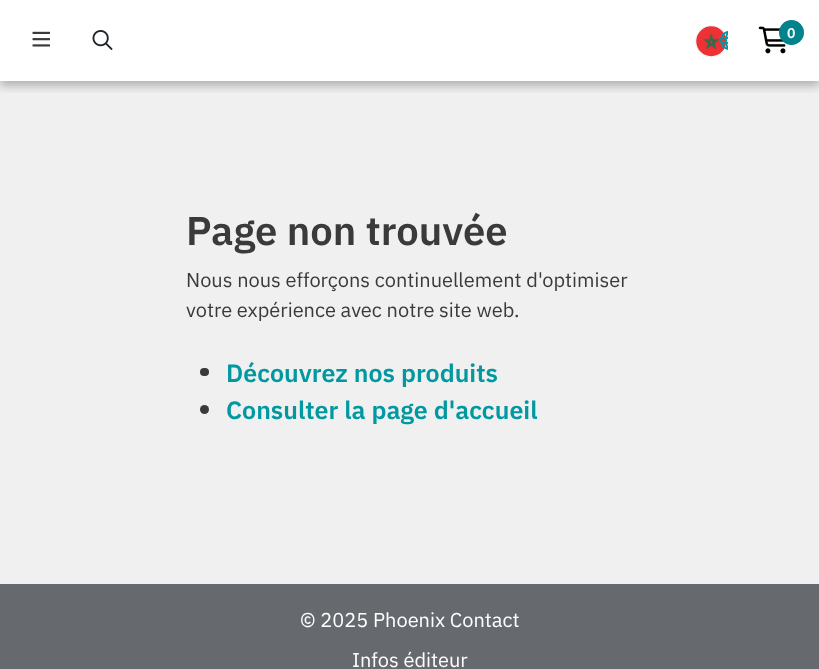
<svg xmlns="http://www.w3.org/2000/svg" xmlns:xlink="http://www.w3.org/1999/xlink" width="819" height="669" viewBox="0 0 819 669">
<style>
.cls-1{font:600 14px IBM Plex Sans;fill:#ffffff}
.cls-2{font:600 40px IBM Plex Sans;fill:#3a3a3a}
.cls-3{font:20px IBM Plex Sans;fill:#3a3a3a}
.cls-4{font:600 25px IBM Plex Sans;fill:#0098a1}
.cls-5{font:20px IBM Plex Sans;fill:#ffffff}
</style>
<defs>
<clipPath id="clip1"><rect x="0" y="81" width="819" height="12"/></clipPath>
</defs>
<rect width="100%" height="100%" fill="#ffffff"/>
<rect fill="#f0f0f0" x="0" y="81" width="819" height="503"/>
<g clip-path="url(#clip1)">
<rect fill="#202020" fill-opacity="0.3" filter="blur(5px)" x="0" y="5" width="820" height="81"/>
</g>
<image xlink:href="image0.png" x="32" y="31" width="18" height="16"/>
<image xlink:href="image1.png" x="92" y="30" width="21" height="20"/>
<image xlink:href="image2.png" x="695" y="25" width="33" height="33"/>
<image xlink:href="image3.png" x="720" y="30" width="8" height="20"/>
<image xlink:href="image4.png" x="758" y="26" width="28" height="28"/>
<circle fill="#00838a" cx="791.5" cy="32.5" r="12.5"/>
<rect fill="#3a3a3a" x="200" y="368" width="9" height="8" rx="4"/>
<circle fill="#3a3a3a" cx="204.5" cy="409.5" r="4.5"/>
<rect fill="#666a6e" x="0" y="584" width="819" height="85"/>
<text class="cls-1" x="787" y="38">0</text>
<text class="cls-2" x="186" y="245">Page non trouvée</text>
<text class="cls-3"><tspan x="186" y="287">Nous nous efforçons continuellement d'optimiser</tspan><tspan x="186" y="317">votre expérience avec notre site web.</tspan></text>
<text class="cls-4"><tspan x="226" y="382">Découvrez nos produits</tspan><tspan x="226" y="419">Consulter la page d'accueil</tspan></text>
<text class="cls-5" x="300" y="627">© 2025 Phoenix Contact</text>
<text class="cls-5" x="352" y="667">Infos éditeur</text>
</svg>
